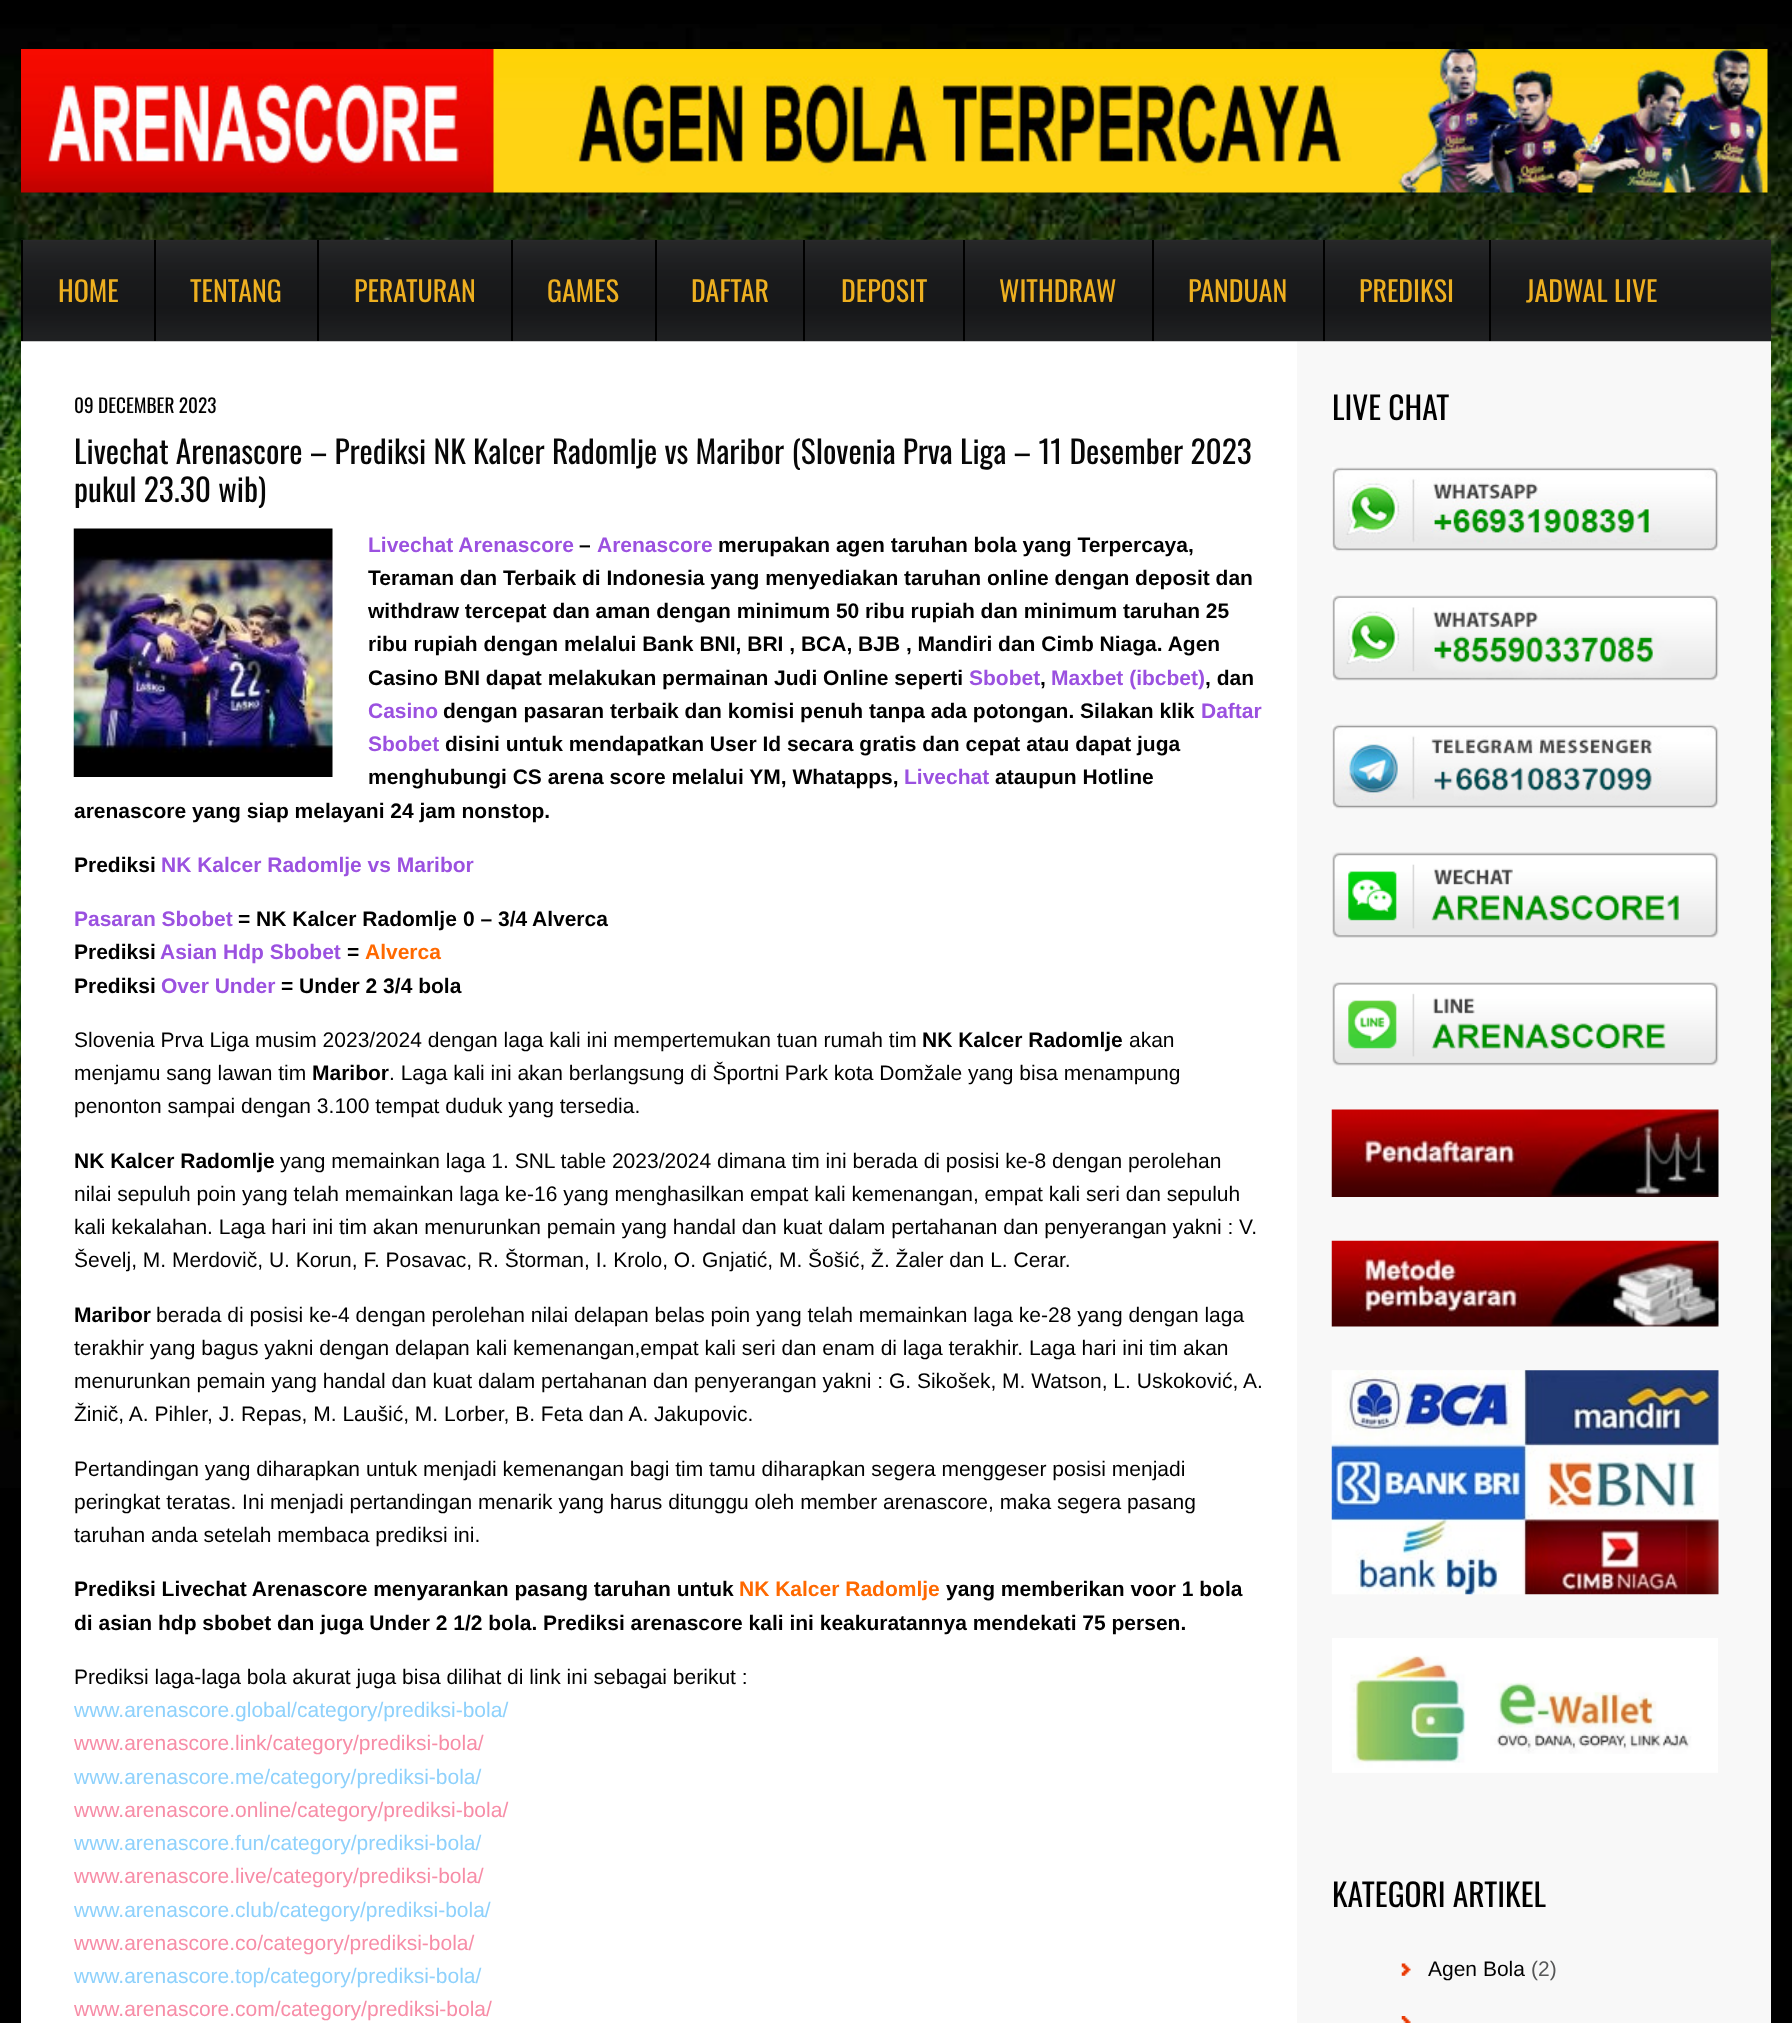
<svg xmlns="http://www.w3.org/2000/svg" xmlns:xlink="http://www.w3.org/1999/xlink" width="1792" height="2023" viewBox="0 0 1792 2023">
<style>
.cls-1{font:28px Oswald;fill:#edaf20}
.cls-2{font:19.25px Oswald;fill:#000000}
.cls-3{font:31.5px Oswald;fill:#070707}
.cls-4{font:bold 21px Liberation Sans;fill:#9b51e0}
.cls-5{font:bold 21px Liberation Sans;fill:#000000}
.cls-6{font:bold 21px Liberation Sans;fill:#ff6900}
.cls-7{font:21px Liberation Sans;fill:#000000}
.cls-8{font:21px Liberation Sans;fill:#8ed1fc}
.cls-9{font:21px Liberation Sans;fill:#f78da7}
.cls-10{font:31.5px Oswald;fill:#000000}
.cls-11{font:21px Liberation Sans;fill:#565757}
</style>
<rect width="100%" height="100%" fill="#000000"/>
<image xlink:href="image0.png" x="0" y="24" width="1792" height="1464"/>
<image xlink:href="image1.png" x="21" y="49" width="1747" height="144"/>
<rect fill="#ffffff" x="21" y="341" width="1276" height="1682"/>
<rect fill="#f8f8f8" x="1297" y="341" width="474" height="1682"/>
<image xlink:href="image2.png" x="21" y="239" width="1750" height="103"/>
<rect fill="#000000" x="21" y="240" width="2" height="101"/>
<rect fill="#000000" x="154" y="240" width="2" height="101"/>
<rect fill="#000000" x="317" y="240" width="2" height="101"/>
<rect fill="#000000" x="511" y="240" width="2" height="101"/>
<rect fill="#000000" x="655" y="240" width="2" height="101"/>
<rect fill="#000000" x="803" y="240" width="2" height="101"/>
<rect fill="#000000" x="963" y="240" width="2" height="101"/>
<rect fill="#000000" x="1152" y="240" width="2" height="101"/>
<rect fill="#000000" x="1323" y="240" width="2" height="101"/>
<rect fill="#000000" x="1489" y="240" width="2" height="101"/>
<image xlink:href="image3.png" x="73" y="528" width="260" height="249"/>
<image xlink:href="image4.png" x="1332" y="467" width="387" height="85"/>
<image xlink:href="image5.png" x="1332" y="595" width="387" height="86"/>
<image xlink:href="image6.png" x="1332" y="724" width="387" height="85"/>
<image xlink:href="image7.png" x="1332" y="852" width="387" height="86"/>
<image xlink:href="image8.png" x="1332" y="982" width="387" height="84"/>
<image xlink:href="image9.png" x="1331" y="1109" width="388" height="88"/>
<image xlink:href="image10.png" x="1331" y="1240" width="388" height="87"/>
<image xlink:href="image11.png" x="1331" y="1370" width="388" height="225"/>
<image xlink:href="image12.png" x="1332" y="1638" width="386" height="135"/>
<image xlink:href="image13.png" x="1401" y="1963" width="10" height="13"/>
<image xlink:href="image14.png" x="1401" y="2016" width="10" height="7"/>
<text class="cls-1" x="58" y="302">HOME</text>
<text class="cls-1" x="190" y="302">TENTANG</text>
<text class="cls-1" x="354" y="302">PERATURAN</text>
<text class="cls-1" x="547" y="302">GAMES</text>
<text class="cls-1" x="691" y="302">DAFTAR</text>
<text class="cls-1" x="841" y="302">DEPOSIT</text>
<text class="cls-1" x="999" y="302">WITHDRAW</text>
<text class="cls-1" x="1188" y="302">PANDUAN</text>
<text class="cls-1" x="1359" y="302">PREDIKSI</text>
<text class="cls-1" x="1526" y="302">JADWAL LIVE</text>
<text class="cls-2" x="74" y="413">09 DECEMBER 2023</text>
<text class="cls-3"><tspan x="74" y="464">Livechat Arenascore – Prediksi NK Kalcer Radomlje vs Maribor (Slovenia Prva Liga – 11 Desember 2023</tspan><tspan x="74" y="502">pukul 23.30 wib)</tspan></text>
<text class="cls-4" x="368" y="552">Livechat Arenascore</text>
<text class="cls-5" x="579" y="552">–</text>
<text class="cls-4" x="597" y="552">Arenascore</text>
<text class="cls-5" x="718" y="552">merupakan agen taruhan bola yang Terpercaya,</text>
<text class="cls-5"><tspan x="368" y="585">Teraman dan Terbaik di Indonesia yang menyediakan taruhan online dengan deposit dan</tspan><tspan x="368" y="618">withdraw tercepat dan aman dengan minimum 50 ribu rupiah dan minimum taruhan 25</tspan><tspan x="368" y="651">ribu rupiah dengan melalui Bank BNI, BRI , BCA, BJB , Mandiri dan Cimb Niaga. Agen</tspan><tspan x="368" y="685">Casino BNI dapat melakukan permainan Judi Online seperti</tspan></text>
<text class="cls-4" x="969" y="685">Sbobet</text>
<text class="cls-5" x="1040" y="685">,</text>
<text class="cls-4" x="1051" y="685">Maxbet (ibcbet)</text>
<text class="cls-5" x="1205" y="685">, dan</text>
<text class="cls-4" x="368" y="718">Casino</text>
<text class="cls-5" x="443" y="718">dengan pasaran terbaik dan komisi penuh tanpa ada potongan. Silakan klik</text>
<text class="cls-4" x="1201" y="718">Daftar</text>
<text class="cls-4" x="368" y="751">Sbobet</text>
<text class="cls-5" x="445" y="751">disini untuk mendapatkan User Id secara gratis dan cepat atau dapat juga</text>
<text class="cls-5" x="368" y="784">menghubungi CS arena score melalui YM, Whatapps,</text>
<text class="cls-4" x="904" y="784">Livechat</text>
<text class="cls-5" x="995" y="784">ataupun Hotline</text>
<text class="cls-5" x="74" y="818">arenascore yang siap melayani 24 jam nonstop.</text>
<text class="cls-5" x="74" y="872">Prediksi</text>
<text class="cls-4" x="161" y="872">NK Kalcer Radomlje vs Maribor</text>
<text class="cls-4" x="74" y="926">Pasaran Sbobet</text>
<text class="cls-5" x="238" y="926">= NK Kalcer Radomlje</text>
<text class="cls-5" x="463" y="926">0 – 3/4</text>
<text class="cls-5" x="532" y="926">Alverca</text>
<text class="cls-5" x="74" y="959">Prediksi</text>
<text class="cls-4" x="160" y="959">Asian Hdp Sbobet</text>
<text class="cls-5" x="347" y="959">=</text>
<text class="cls-6" x="365" y="959">Alverca</text>
<text class="cls-5" x="74" y="993">Prediksi</text>
<text class="cls-4" x="161" y="993">Over Under</text>
<text class="cls-5" x="281" y="993">= Under 2 3/4 bola</text>
<text class="cls-7" x="74" y="1047">Slovenia Prva Liga musim 2023/2024 dengan laga kali ini mempertemukan tuan rumah tim</text>
<text class="cls-5" x="922" y="1047">NK Kalcer Radomlje</text>
<text class="cls-7" x="1129" y="1047">akan</text>
<text class="cls-7" x="74" y="1080">menjamu sang lawan tim</text>
<text class="cls-5" x="312" y="1080">Maribor</text>
<text class="cls-7" x="389" y="1080">. Laga kali ini akan berlangsung di Športni Park kota Domžale yang bisa menampung</text>
<text class="cls-7" x="74" y="1113">penonton sampai dengan 3.100 tempat duduk yang tersedia.</text>
<text class="cls-5" x="74" y="1168">NK Kalcer Radomlje</text>
<text class="cls-7" x="280" y="1168">yang memainkan laga 1. SNL table 2023/2024 dimana tim ini berada di posisi ke-8 dengan perolehan</text>
<text class="cls-7"><tspan x="74" y="1201">nilai sepuluh poin yang telah memainkan laga ke-16 yang menghasilkan empat kali kemenangan, empat kali seri dan sepuluh</tspan><tspan x="74" y="1234">kali kekalahan. Laga hari ini tim akan menurunkan pemain yang handal dan kuat dalam pertahanan dan penyerangan yakni : V.</tspan><tspan x="74" y="1267">Ševelj, M. Merdovič, U. Korun, F. Posavac, R. Štorman, I. Krolo, O. Gnjatić, M. Šošić, Ž. Žaler dan L. Cerar.</tspan></text>
<text class="cls-5" x="74" y="1322">Maribor</text>
<text class="cls-7" x="156" y="1322">berada di posisi ke-4 dengan perolehan nilai delapan belas poin yang telah memainkan laga ke-28 yang dengan laga</text>
<text class="cls-7"><tspan x="74" y="1355">terakhir yang bagus yakni dengan delapan kali kemenangan,empat kali seri dan enam di laga terakhir. Laga hari ini tim akan</tspan><tspan x="74" y="1388">menurunkan pemain yang handal dan kuat dalam pertahanan dan penyerangan yakni : G. Sikošek, M. Watson, L. Uskoković, A.</tspan><tspan x="74" y="1421">Žinič, A. Pihler, J. Repas, M. Laušić, M. Lorber, B. Feta dan A. Jakupovic.</tspan></text>
<text class="cls-7"><tspan x="74" y="1476">Pertandingan yang diharapkan untuk menjadi kemenangan bagi tim tamu diharapkan segera menggeser posisi menjadi</tspan><tspan x="74" y="1509">peringkat teratas. Ini menjadi pertandingan menarik yang harus ditunggu oleh member arenascore, maka segera pasang</tspan><tspan x="74" y="1542">taruhan anda setelah membaca prediksi ini.</tspan></text>
<text class="cls-5" x="74" y="1596">Prediksi Livechat Arenascore menyarankan pasang taruhan untuk</text>
<text class="cls-6" x="739" y="1596">NK Kalcer Radomlje</text>
<text class="cls-5" x="946" y="1596">yang memberikan voor 1 bola</text>
<text class="cls-5" x="74" y="1630">di asian hdp sbobet dan juga Under 2 1/2 bola. Prediksi arenascore kali ini keakuratannya mendekati 75 persen.</text>
<text class="cls-7" x="74" y="1684">Prediksi laga-laga bola akurat juga bisa dilihat di link ini sebagai berikut :</text>
<text class="cls-8" x="74" y="1717">www.arenascore.global/category/prediksi-bola/</text>
<text class="cls-9" x="74" y="1750">www.arenascore.link/category/prediksi-bola/</text>
<text class="cls-8" x="74" y="1784">www.arenascore.me/category/prediksi-bola/</text>
<text class="cls-9" x="74" y="1817">www.arenascore.online/category/prediksi-bola/</text>
<text class="cls-8" x="74" y="1850">www.arenascore.fun/category/prediksi-bola/</text>
<text class="cls-9" x="74" y="1883">www.arenascore.live/category/prediksi-bola/</text>
<text class="cls-8" x="74" y="1917">www.arenascore.club/category/prediksi-bola/</text>
<text class="cls-9" x="74" y="1950">www.arenascore.co/category/prediksi-bola/</text>
<text class="cls-8" x="74" y="1983">www.arenascore.top/category/prediksi-bola/</text>
<text class="cls-9" x="74" y="2016">www.arenascore.com/category/prediksi-bola/</text>
<text class="cls-10" x="1332" y="420">LIVE CHAT</text>
<text class="cls-10" x="1332" y="1907">KATEGORI ARTIKEL</text>
<text class="cls-7" x="1428" y="1976">Agen Bola</text>
<text class="cls-11" x="1531" y="1976">(2)</text>
</svg>
